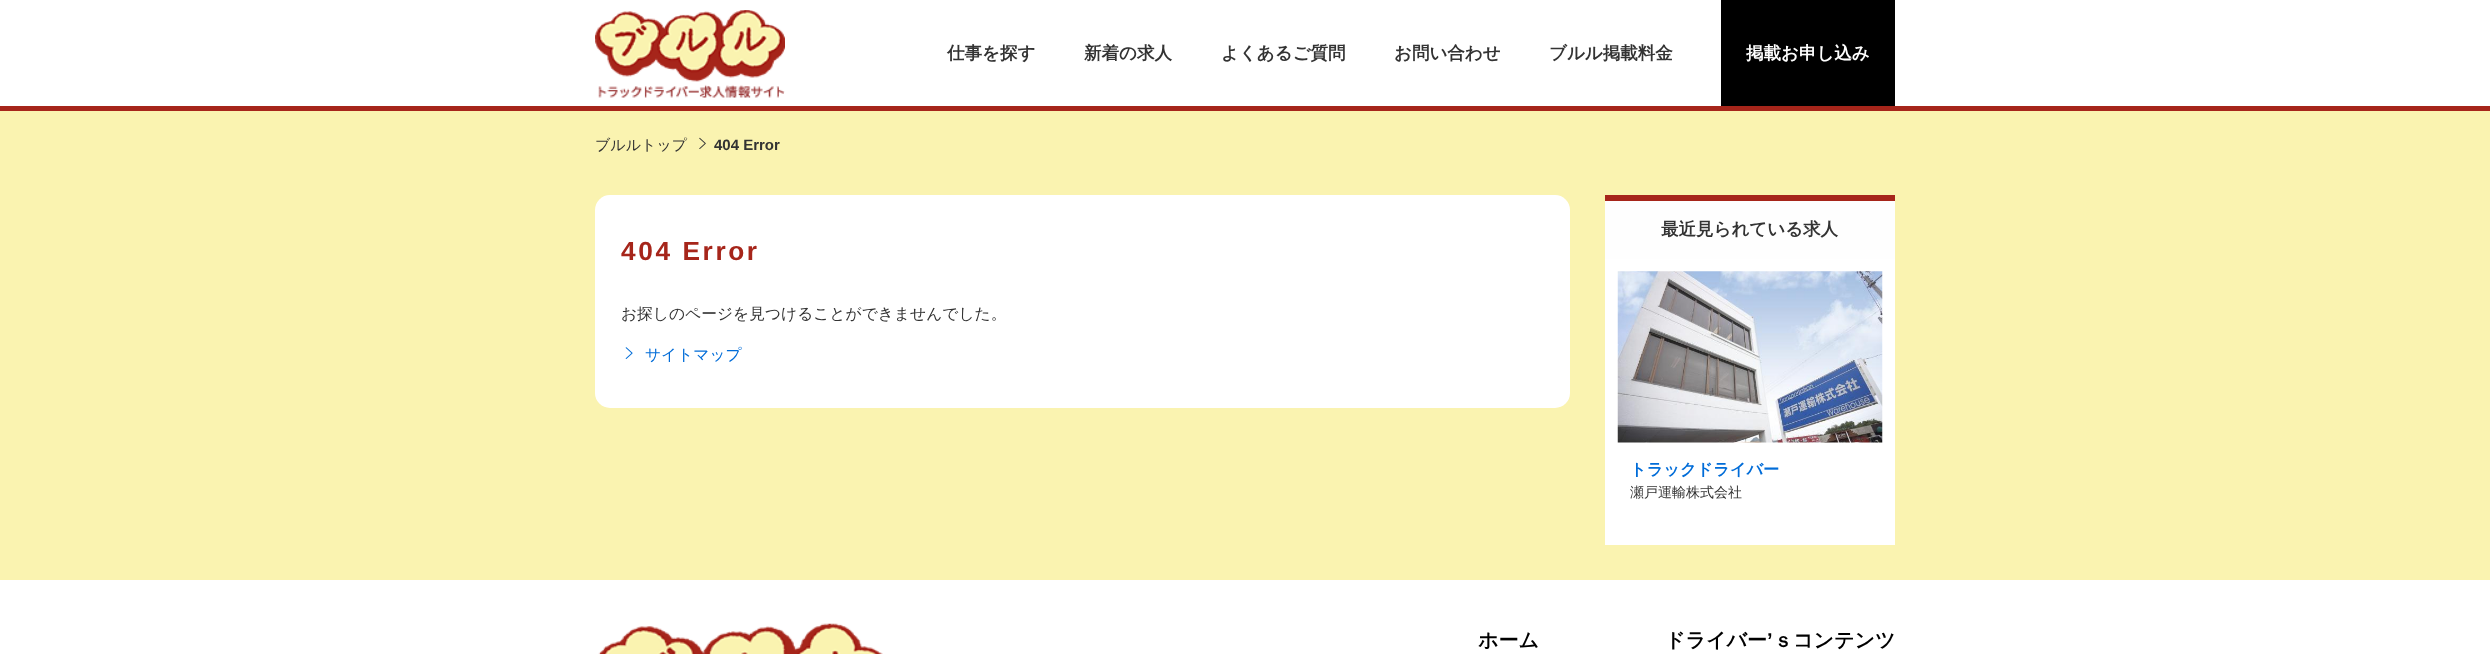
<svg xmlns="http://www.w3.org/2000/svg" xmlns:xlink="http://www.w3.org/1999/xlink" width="2490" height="654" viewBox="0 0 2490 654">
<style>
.cls-1{font:bold 17.5px WenQuanYi Zen Hei;fill:#333333}
.cls-2{font:bold 17.5px WenQuanYi Zen Hei;fill:#ffffff}
.cls-3{font:500 15px WenQuanYi Zen Hei;fill:#333333}
.cls-4{font:bold 15px Liberation Sans;fill:#333333}
.cls-5{font:bold 26.25px Liberation Sans;letter-spacing:2.6px;fill:#a6251a}
.cls-6{font:500 15.75px WenQuanYi Zen Hei;fill:#333333}
.cls-7{font:500 15.75px WenQuanYi Zen Hei;fill:#006cd8}
.cls-8{font:bold 16.25px WenQuanYi Zen Hei;fill:#006cd8}
.cls-9{font:500 14px WenQuanYi Zen Hei;fill:#333333}
.cls-10{font:bold 20px WenQuanYi Zen Hei;fill:#000000}
.cls-11{font:bold 20px Liberation Sans;fill:#000000}
</style>
<rect width="100%" height="100%" fill="#faf3b0"/>
<rect fill="#ffffff" x="0" y="0" width="2490" height="106"/>
<rect fill="#a6251a" x="0" y="106" width="2490" height="5"/>
<image xlink:href="image0.png" x="595" y="10" width="190" height="88"/>
<rect fill="#000000" x="1721" y="0" width="174" height="106"/>
<image xlink:href="image1.png" x="699" y="137" width="7" height="12"/>
<rect fill="#ffffff" x="595" y="195" width="975" height="213" rx="15"/>
<image xlink:href="image2.png" x="625" y="347" width="8" height="12"/>
<rect fill="#fefefe" x="1605" y="201" width="290" height="58"/>
<rect fill="#a6251a" x="1605" y="195" width="290" height="6"/>
<rect fill="#ffffff" x="1605" y="259" width="290" height="286"/>
<image xlink:href="image3.png" x="1617" y="271" width="266" height="172"/>
<rect fill="#ffffff" x="0" y="580" width="2490" height="74"/>
<image xlink:href="image4.png" x="598" y="623" width="285" height="31"/>
<text class="cls-1" x="947" y="59">仕事を探す</text>
<text class="cls-1" x="1084" y="59">新着の求人</text>
<text class="cls-1" x="1221" y="59">よくあるご質問</text>
<text class="cls-1" x="1394" y="59">お問い合わせ</text>
<text class="cls-1" x="1549" y="59">ブルル掲載料金</text>
<text class="cls-2" x="1746" y="59">掲載お申し込み</text>
<text class="cls-3" x="595" y="150">ブルルトップ</text>
<text class="cls-4" x="714" y="150">404 Error</text>
<text class="cls-5" x="621" y="260">404 Error</text>
<text class="cls-6" x="621" y="319">お探しのページを見つけることができませんでした。</text>
<text class="cls-7" x="645" y="360">サイトマップ</text>
<text class="cls-1" x="1661" y="235">最近見られている求人</text>
<text class="cls-8" x="1630" y="475">トラックドライバー</text>
<text class="cls-9" x="1630" y="497">瀬戸運輸株式会社</text>
<text class="cls-10" x="1478" y="647">ホーム</text>
<text class="cls-10" x="1665" y="647">ドライバー</text>
<text class="cls-11" x="1767" y="647">’</text>
<text class="cls-10" x="1773" y="647">ｓコンテンツ</text>
</svg>
